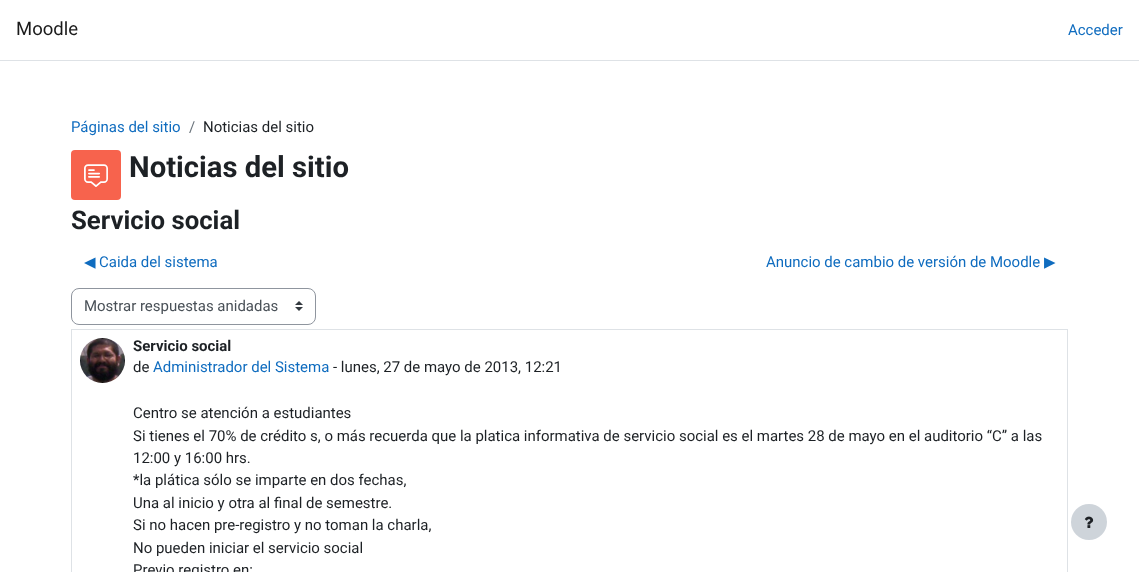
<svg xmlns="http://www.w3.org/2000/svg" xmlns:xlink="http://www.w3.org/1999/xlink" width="1139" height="572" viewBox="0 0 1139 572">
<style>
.cls-1{font:18.5px Roboto;fill:#1a1a1a}
.cls-2{font:14.97px Roboto;fill:#0f6cbf}
.cls-3{font:14.97px Roboto;fill:#6a737b}
.cls-4{font:14.97px Roboto;fill:#1d2125}
.cls-5{font:bold 29.25px Roboto;fill:#1d2125}
.cls-6{font:bold 25.75px Roboto;fill:#1d2125}
.cls-7{font:14.97px DejaVu Sans;fill:#0f6cbf}
.cls-8{font:14.97px Roboto;fill:#495057}
.cls-9{font:bold 14.97px Roboto;fill:#1d2125}
</style>
<rect width="100%" height="100%" fill="#ffffff"/>
<rect fill="#dee2e6" x="0" y="60" width="1139" height="1"/>
<rect fill="#f7634d" x="71" y="150" width="50" height="50" rx="4"/>
<image xlink:href="image0.png" x="84" y="164" width="24" height="23"/>
<image xlink:href="image1.png" x="295" y="301" width="8" height="10"/>
<rect fill="none" stroke="#8f959e" x="71.5" y="288.5" width="244" height="36" rx="7.5"/>
<rect fill="none" stroke="#dee2e6" x="71.5" y="329.5" width="996" height="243"/>
<image xlink:href="image2.png" x="80" y="338" width="45" height="45"/>
<circle fill="#ced4da" cx="1089" cy="522" r="18"/>
<image xlink:href="image3.png" x="1084" y="516" width="10" height="12"/>
<text class="cls-1" x="16" y="35">Moodle</text>
<text class="cls-2" x="1068" y="35">Acceder</text>
<text class="cls-2" x="71" y="132">Páginas del sitio</text>
<text class="cls-3" x="189" y="132">/</text>
<text class="cls-4" x="203" y="132">Noticias del sitio</text>
<text class="cls-5" x="129" y="177">Noticias del sitio</text>
<text class="cls-6" x="71" y="229">Servicio social</text>
<text class="cls-7" x="84" y="267">◀︎</text>
<text class="cls-2" x="99" y="267">Caida del sistema</text>
<text class="cls-2" x="766" y="267">Anuncio de cambio de versión de Moodle</text>
<text class="cls-7" x="1044" y="267">▶︎</text>
<text class="cls-8" x="84" y="311">Mostrar respuestas anidadas</text>
<text class="cls-9" x="133" y="351">Servicio social</text>
<text class="cls-4" x="133" y="372">de</text>
<text class="cls-2" x="153" y="372">Administrador del Sistema</text>
<text class="cls-4" x="333" y="372">- lunes, 27 de mayo de 2013, 12:21</text>
<text class="cls-4"><tspan x="133" y="418">Centro se atención a estudiantes</tspan><tspan x="133" y="441">Si tienes el 70% de crédito s, o más recuerda que la platica informativa de servicio social es el martes 28 de mayo en el auditorio “C” a las</tspan><tspan x="133" y="463">12:00 y 16:00 hrs.</tspan><tspan x="133" y="485">*la plática sólo se imparte en dos fechas,</tspan><tspan x="133" y="508">Una al inicio y otra al final de semestre.</tspan><tspan x="133" y="530">Si no hacen pre-registro y no toman la charla,</tspan><tspan x="133" y="553">No pueden iniciar el servicio social</tspan><tspan x="133" y="575">Previo registro en:</tspan></text>
</svg>
